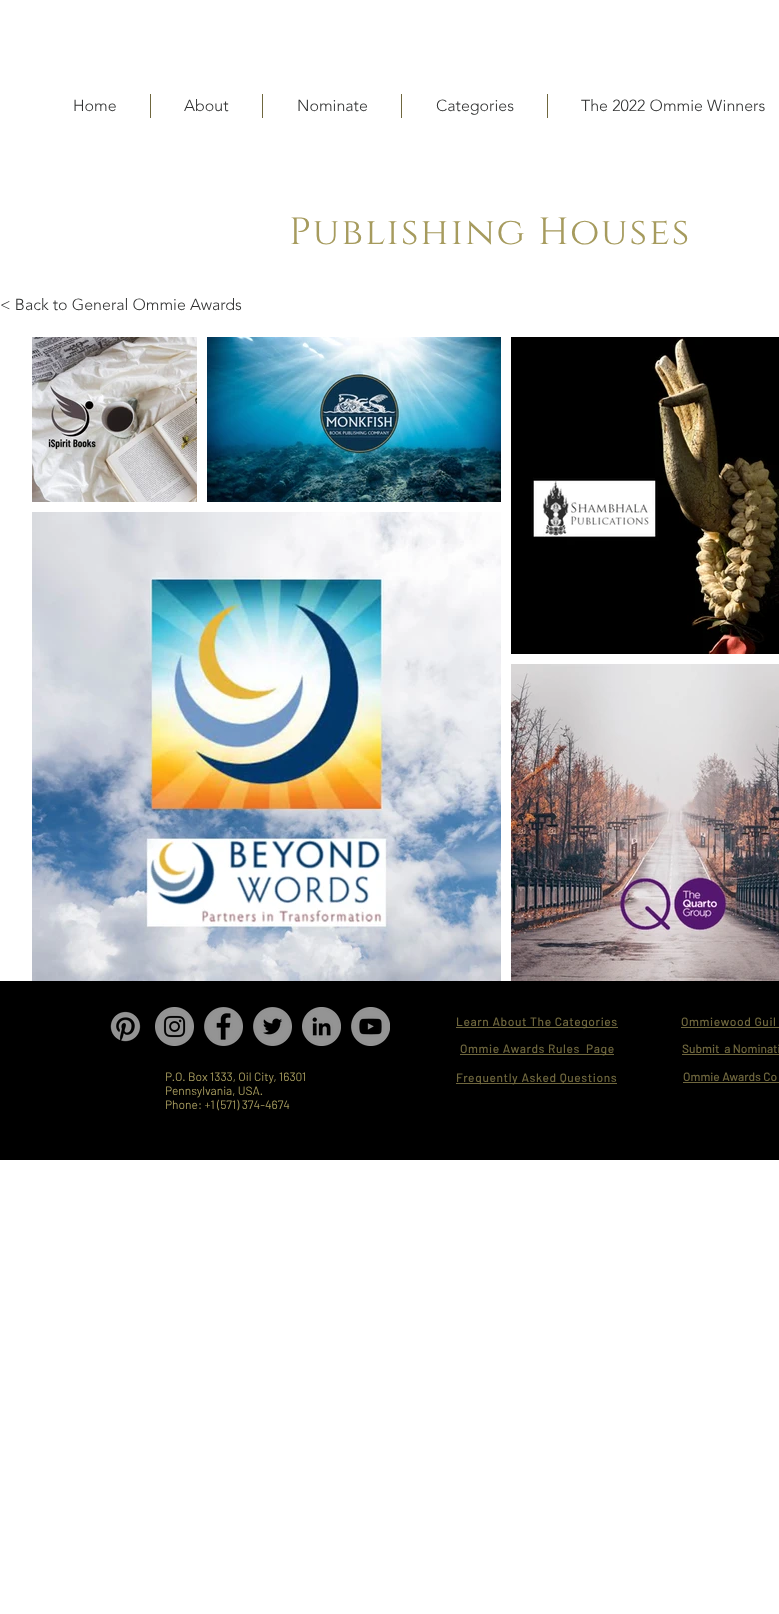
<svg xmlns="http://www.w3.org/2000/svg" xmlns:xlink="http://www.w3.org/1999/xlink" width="779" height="1614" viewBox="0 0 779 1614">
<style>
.cls-1{font:300 16px 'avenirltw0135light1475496';fill:#303131}
.cls-2{font:38px Cinzel;letter-spacing:1.9px;fill:#a69b5e}
.cls-3{font:500 12px Barlow;letter-spacing:0.6px;fill:#6f673e}
.cls-4{font:500 12px Barlow;fill:#6f673e}
.cls-5{font:12px Barlow;fill:#a69b5e}
</style>
<rect width="100%" height="100%" fill="#ffffff"/>
<rect fill="#6f673e" x="150" y="94" width="1" height="24"/>
<rect fill="#6f673e" x="262" y="94" width="1" height="24"/>
<rect fill="#6f673e" x="401" y="94" width="1" height="24"/>
<rect fill="#6f673e" x="547" y="94" width="1" height="24"/>
<image xlink:href="image0.png" x="32" y="337" width="165" height="165"/>
<image xlink:href="image1.png" x="207" y="337" width="294" height="165"/>
<image xlink:href="image2.png" x="511" y="337" width="268" height="317"/>
<image xlink:href="image3.png" x="32" y="512" width="469" height="469"/>
<image xlink:href="image4.png" x="511" y="664" width="268" height="317"/>
<rect fill="#000000" x="0" y="981" width="779" height="179"/>
<image xlink:href="image5.png" x="110" y="1011" width="31" height="31"/>
<image xlink:href="image6.png" x="155" y="1007" width="39" height="39"/>
<image xlink:href="image7.png" x="204" y="1007" width="39" height="39"/>
<image xlink:href="image8.png" x="253" y="1007" width="39" height="39"/>
<image xlink:href="image9.png" x="302" y="1007" width="39" height="39"/>
<image xlink:href="image10.png" x="351" y="1007" width="39" height="39"/>
<rect fill="#6f673e" x="456" y="1027" width="162" height="1"/>
<rect fill="#6f673e" x="681" y="1027" width="98" height="1"/>
<rect fill="#6f673e" x="460" y="1054" width="154" height="1"/>
<rect fill="#6f673e" x="682" y="1054" width="97" height="1"/>
<rect fill="#6f673e" x="456" y="1083" width="161" height="1"/>
<rect fill="#6f673e" x="683" y="1082" width="96" height="1"/>
<text class="cls-1" x="73" y="111">Home</text>
<text class="cls-1" x="184" y="111">About</text>
<text class="cls-1" x="297" y="111">Nominate</text>
<text class="cls-1" x="436" y="111">Categories</text>
<text class="cls-1" x="581" y="111">The 2022 Ommie Winners</text>
<text class="cls-2" x="289" y="244">Publishing Houses</text>
<text class="cls-1" x="0" y="310">&lt; Back to General Ommie Awards</text>
<text class="cls-3" x="456" y="1026">Learn About The Categories</text>
<text class="cls-3" x="681" y="1026">Ommiewood Guil</text>
<text class="cls-3" xml:space="preserve" x="460" y="1053">Ommie Awards Rules  Page</text>
<text class="cls-4" xml:space="preserve" x="682" y="1053">Submit  a Nominati</text>
<text class="cls-5"><tspan x="165" y="1081">P.O. Box 1333, Oil City, 16301</tspan><tspan x="165" y="1095">Pennsylvania, USA.</tspan><tspan x="165" y="1109">Phone: +1 (571) 374-4674</tspan></text>
<text class="cls-3" x="456" y="1082">Frequently Asked Questions</text>
<text class="cls-4" x="683" y="1081">Ommie Awards Co</text>
</svg>
